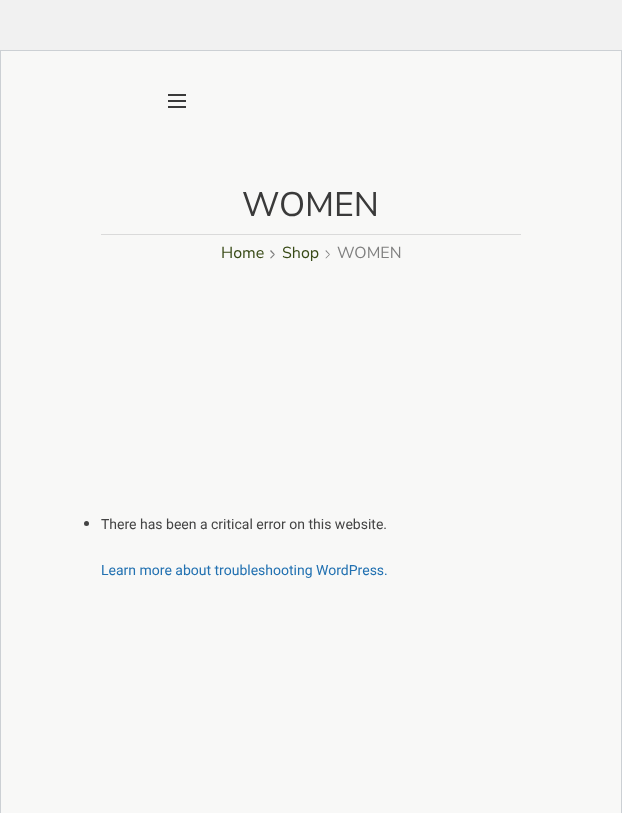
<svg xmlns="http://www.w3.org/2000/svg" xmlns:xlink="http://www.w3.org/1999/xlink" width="622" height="813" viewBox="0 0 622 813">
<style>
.cls-1{font:200 34px Nunito Sans;fill:#3a3a3a}
.cls-2{font:200 16px Nunito Sans;fill:#384a16}
.cls-3{font:200 16px Nunito Sans;fill:#808080}
.cls-4{font:14px Roboto;fill:#444444}
.cls-5{font:14px Roboto;fill:#2271b1}
</style>
<rect width="100%" height="100%" fill="#f1f1f1"/>
<rect fill="#f8f8f7" stroke="#ccd0d4" x="0.5" y="50.5" width="621" height="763"/>
<rect fill="#3a3a3a" x="168" y="100" width="18" height="2"/>
<rect fill="#3a3a3a" x="168" y="94" width="18" height="2"/>
<rect fill="#3a3a3a" x="168" y="106" width="18" height="2"/>
<rect fill="#dadada" x="101" y="234" width="420" height="1"/>
<path fill="#7c7c7c" d="M275 254.5L271 258.5L270 258L273.5 254.5Z"/>
<circle fill="#444444" cx="86.5" cy="523.5" r="2.5"/>
<text class="cls-1" x="242" y="216">WOMEN</text>
<text class="cls-2" x="221" y="258">Home</text>
<text class="cls-2" x="282" y="258">Shop</text>
<text class="cls-3" x="337" y="258">WOMEN</text>
<path fill="#7c7c7c" d="M271 250L275 254.5H273.5L270 251ZM330 254.5L326 258.5L325.5 258L329 254.5Z"/>
<path fill="#7c7c7c" d="M326 250L330 254.5H329L325.5 251Z"/>
<text class="cls-4" x="101" y="529">There has been a critical error on this website.</text>
<text class="cls-5" x="101" y="575">Learn more about troubleshooting WordPress.</text>
</svg>
